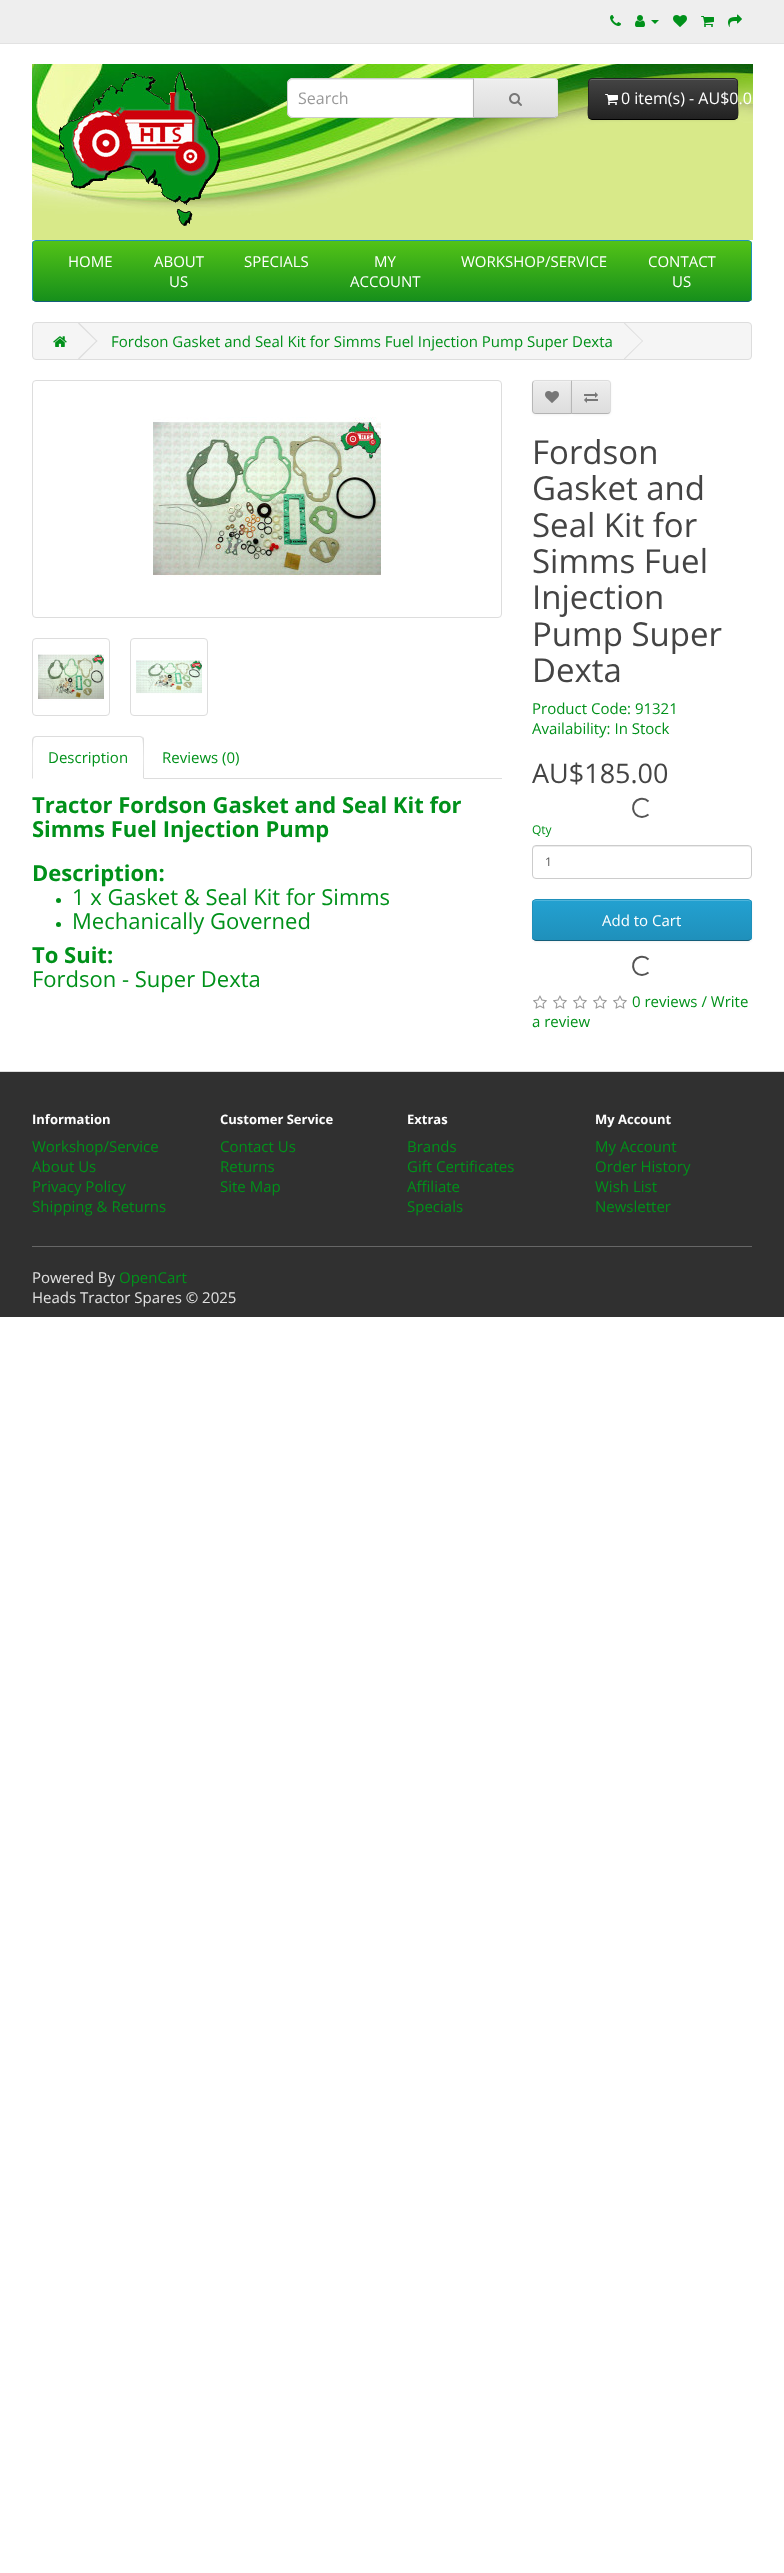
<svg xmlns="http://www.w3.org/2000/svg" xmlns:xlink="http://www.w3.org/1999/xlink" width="784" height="2573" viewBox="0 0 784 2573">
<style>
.cls-1{font:16px Open Sans;fill:#999999}
.cls-2{font:16px Open Sans;fill:#ffffff}
.cls-3{font:15px Open Sans;fill:#ffffff}
.cls-4{font:15px Open Sans;fill:#00911a}
.cls-5{font:bold 22px Open Sans;fill:#00911a}
.cls-6{font:22px Open Sans;fill:#00911a}
.cls-7{font:33px Open Sans;fill:#444444}
.cls-8{font:27px Open Sans;fill:#444444}
.cls-9{font:12px Open Sans;fill:#00911a}
.cls-10{font:12px Open Sans;fill:#555555}
.cls-11{font:bold 13px Open Sans;fill:#ffffff}
.cls-12{font:15px Open Sans;fill:#e2e2e2}
</style>
<defs>
<clipPath id="clip1"><path d="M473 78H554C556 78 558 80 558 82V114C558 116 556 118 554 118H473Z"/></clipPath>
<linearGradient id="g1" gradientUnits="userSpaceOnUse" x1="516" y1="79" x2="516" y2="117"><stop offset="0" stop-color="#eeeeee"/><stop offset="1" stop-color="#dddddd"/></linearGradient>
<clipPath id="clip2"><rect x="588" y="78" width="150" height="42" rx="4"/></clipPath>
<linearGradient id="g2" gradientUnits="userSpaceOnUse" x1="663" y1="79" x2="663" y2="119"><stop offset="0" stop-color="#444444"/><stop offset="1" stop-color="#222222"/></linearGradient>
<clipPath id="clip3"><rect x="32" y="240" width="720" height="62" rx="4"/></clipPath>
<linearGradient id="g3" gradientUnits="userSpaceOnUse" x1="392" y1="241" x2="392" y2="301"><stop offset="0" stop-color="#53c317"/><stop offset="1" stop-color="#168f1b"/></linearGradient>
<clipPath id="clip4"><path d="M536 380H572V414H536C534 414 532 412 532 410V384C532 382 534 380 536 380Z"/></clipPath>
<linearGradient id="g4" gradientUnits="userSpaceOnUse" x1="552" y1="381" x2="552" y2="413"><stop offset="0" stop-color="#eeeeee"/><stop offset="1" stop-color="#dddddd"/></linearGradient>
<clipPath id="clip5"><path d="M571 380H607C609 380 611 382 611 384V410C611 412 609 414 607 414H571Z"/></clipPath>
<linearGradient id="g5" gradientUnits="userSpaceOnUse" x1="591" y1="381" x2="591" y2="413"><stop offset="0" stop-color="#eeeeee"/><stop offset="1" stop-color="#dddddd"/></linearGradient>
<clipPath id="clip6"><rect x="532" y="899" width="220" height="42" rx="4"/></clipPath>
<linearGradient id="g6" gradientUnits="userSpaceOnUse" x1="642" y1="900" x2="642" y2="940"><stop offset="0" stop-color="#23a1d1"/><stop offset="1" stop-color="#1f90bb"/></linearGradient>
</defs>
<rect width="100%" height="100%" fill="#ffffff"/>
<rect fill="#eeeeee" x="0" y="0" width="784" height="43"/>
<rect fill="#e2e2e2" x="0" y="43" width="784" height="1"/>
<image xlink:href="image0.png" x="610" y="15" width="11" height="11"/>
<image xlink:href="image1.png" x="635" y="15" width="10" height="12"/>
<path fill="#00911a" d="M651 20H659L655 24Z"/>
<image xlink:href="image2.png" x="673" y="15" width="14" height="12"/>
<image xlink:href="image3.png" x="701" y="16" width="13" height="11"/>
<image xlink:href="image4.png" x="728" y="14" width="14" height="13"/>
<rect fill="#d8e989" x="32" y="216" width="721" height="24"/>
<image xlink:href="image5.png" x="32" y="64" width="721" height="152"/>
<image xlink:href="image6.png" x="58" y="72" width="163" height="154"/>
<path fill="#ffffff" d="M293 78H474V118H293C289.5 118 287 115.5 287 112V84C287 80.5 289.5 78 293 78Z"/>
<path fill="#ececec" d="M293 80H473V79H293C290 79 288 82 288 85C288 82 290 80 293 80Z"/>
<path fill="none" stroke="#cccccc" d="M293 78.5H473.5V117.5H293C290 117.5 287.5 115 287.5 112V84C287.5 81 290 78.5 293 78.5Z"/>
<rect fill="#000000" fill-opacity="0.05" filter="blur(1px)" x="473" y="79" width="85" height="40" rx="4"/>
<path fill="#e7e7e7" d="M473 78H554C556 78 558 80 558 82V114C558 116 556 118 554 118H473Z"/>
<g clip-path="url(#clip1)">
<rect fill="url(#g1)" x="474" y="79" width="84" height="38"/>
</g>
<path fill="#f1f1f1" d="M474 80H554C556 80 557 81 557 83V82C557 80 556 79 554 79H474Z"/>
<path fill="#dddddd" d="M473 78L474 79H555L556 80L557 79L554 78Z"/>
<path fill="#dddddd" d="M558 114V82C558 81 557.5 80 557 79L556 80C557 80 557 81 557 82V114C557 115 557 116 556 116L557 117C557.5 116 558 115 558 114Z"/>
<path fill="#b3b3b3" d="M554 118L557 117L556 116L555 117H474L473 118Z"/>
<path fill="#b7b7b7" d="M473 78V118L474 117V79Z"/>
<image xlink:href="image7.png" x="509" y="93" width="13" height="13"/>
<rect fill="#000000" fill-opacity="0.05" filter="blur(1px)" x="588" y="79" width="150" height="42" rx="4"/>
<g clip-path="url(#clip2)">
<rect fill="url(#g2)" x="588" y="79" width="150" height="40"/>
</g>
<path fill="#ffffff" fill-opacity="0.2" d="M592 80H734C736 80 737 81 737 83C737 81 737 80 735 79H616C608 79 589 74 589 83C589 81 590 80 592 80Z"/>
<path fill="none" stroke="#000000" d="M736.5 118.5C736 119 735 119.5 734 119.5H592C591 119.5 590 119 589.5 118.5"/>
<path fill="none" stroke="#222222" d="M589.5 118.5C587 116 588.5 107.5 588.5 104.5V87.5C588.5 85 587.5 78.5 592 78.5H734C738.5 78.5 737.5 85 737.5 87.5V104.5C737.5 107.5 739 116 736.5 118.5"/>
<image xlink:href="image8.png" x="605" y="94" width="13" height="11"/>
<g clip-path="url(#clip3)">
<rect fill="url(#g3)" x="32" y="241" width="720" height="60"/>
</g>
<path fill="none" stroke="#145e7a" d="M750.5 300.5C750 301 749 301.5 748 301.5H36C35 301.5 34 301 33.5 300.5"/>
<path fill="none" stroke="#1f90bb" d="M33.5 300.5C33 300 32.5 299 32.5 298V244C32.5 243 33 242 33.5 241.5C34 241 35 240.5 36 240.5H748C749 240.5 750 241 750.5 241.5C751 242 751.5 243 751.5 244V298C751.5 299 751 300 750.5 300.5"/>
<rect fill="#f5f5f5" stroke="#dddddd" x="32.5" y="322.5" width="719" height="37" rx="3.5"/>
<image xlink:href="image9.png" x="53" y="336" width="14" height="11"/>
<path fill="#dddddd" d="M78 323.5L79 322.5L97.5 341L96.5 341.5Z"/>
<path fill="#dddddd" d="M78 358.5L96.5 340.5L97.5 341L79 359.5Z"/>
<path fill="#dddddd" d="M624 323.5L624.5 322.5L643 341L642.5 341.5Z"/>
<path fill="#dddddd" d="M624 358.5L642.5 340.5L643 341L624.5 359.5Z"/>
<rect fill="none" stroke="#dddddd" x="32.5" y="380.5" width="469" height="237" rx="3.5"/>
<image xlink:href="image10.png" x="153" y="417" width="228" height="160"/>
<rect fill="none" stroke="#dddddd" x="32.5" y="638.5" width="77" height="77" rx="3.5"/>
<image xlink:href="image11.png" x="38" y="654" width="66" height="47"/>
<rect fill="none" stroke="#dddddd" x="130.5" y="638.5" width="77" height="77" rx="3.5"/>
<image xlink:href="image12.png" x="136" y="660" width="66" height="34"/>
<rect fill="#dddddd" x="144" y="778" width="358" height="1"/>
<path fill="#dddddd" d="M36 736L33 737L34 738L36 737H140L142 738L143 737L140 736Z"/>
<path fill="#dddddd" d="M144 779V740C144 739 144 738 143 737L142 738C144 740 143 773 143 778Z"/>
<path fill="#dddddd" d="M32 779L33 778C33 773 32 740 34 738L33 737L32 740Z"/>
<circle fill="#00911a" cx="58.5" cy="900.5" r="2.5"/>
<circle fill="#00911a" cx="58.5" cy="924.5" r="2.5"/>
<rect fill="#000000" fill-opacity="0.05" filter="blur(1px)" x="532" y="381" width="40" height="34" rx="4"/>
<g clip-path="url(#clip4)">
<rect fill="url(#g4)" x="532" y="381" width="39" height="32"/>
</g>
<path fill="#f1f1f1" d="M536 382H571V381H536C534.5 381 533 382.5 533 384V385C533 383 534 382 536 382Z"/>
<path fill="#dddddd" d="M536 380C535 380 534 380.5 533 381L534 382C534 381 535 381 536 381H571L572 380Z"/>
<path fill="#b3b3b3" d="M572 414L571 413H536C535 413 534 413 534 412L533 413C534 413.5 535 414 536 414Z"/>
<path fill="#b7b7b7" d="M532 384V410C532 411 532.5 412 533 413L534 412C533 412 533 411 533 410V384C533 383 533 382 534 382L533 381C532.5 382 532 383 532 384Z"/>
<image xlink:href="image13.png" x="545" y="391" width="14" height="12"/>
<rect fill="#000000" fill-opacity="0.05" filter="blur(1px)" x="571" y="381" width="40" height="34" rx="4"/>
<g clip-path="url(#clip5)">
<rect fill="url(#g5)" x="572" y="381" width="39" height="32"/>
</g>
<path fill="#f1f1f1" d="M572 382H607C609 382 610 383 610 385V384C610 382.5 608.5 381 607 381H572Z"/>
<path fill="#dddddd" d="M571 380L572 381H607C608 381 609 381 609 382L610 381C609 380.5 608 380 607 380Z"/>
<path fill="#dddddd" d="M611 410V384C611 383 610.5 382 610 381L609 382C610 382 610 383 610 384V410C610 411 610 412 609 412L610 413C610.5 412 611 411 611 410Z"/>
<path fill="#b3b3b3" d="M607 414C608 414 609 413.5 610 413L609 412C609 413 608 413 607 413H572L571 414Z"/>
<path fill="#b7b7b7" d="M571 380V414L572 413V381Z"/>
<image xlink:href="image14.png" x="584" y="392" width="14" height="11"/>
<path fill="none" stroke="#545454" stroke-width="2" d="M648.5 814.5C646.5 816 644.5 817 642 817C631.5 817 629.5 801.5 640 799C643 798.5 646.5 799.5 648.5 801.5"/>
<path fill="#ececec" d="M536 847H748C750 847 751 848 751 850V849C751 847 750 846 748 846H536C534 846 533 847 533 849V850C533 848 534 847 536 847Z"/>
<rect fill="none" stroke="#cccccc" x="532.5" y="845.5" width="219" height="33" rx="3.5"/>
<rect fill="#000000" fill-opacity="0.05" filter="blur(1px)" x="532" y="900" width="220" height="42" rx="4"/>
<g clip-path="url(#clip6)">
<rect fill="url(#g6)" x="532" y="900" width="220" height="40"/>
</g>
<path fill="#4fb4da" d="M536 901H748C750 901 751 902 751 904V903C751 901 750 900 748 900H536C534 900 533 901 533 903V904C533 902 534 901 536 901Z"/>
<path fill="none" stroke="#145e7a" d="M750.5 939.5C750 940 749 940.5 748 940.5H536C535 940.5 534 940 533.5 939.5"/>
<path fill="none" stroke="#1f90bb" d="M533.5 939.5C533 939 532.5 938 532.5 937V903C532.5 902 533 901 533.5 900.5C534 900 535 899.5 536 899.5H748C749 899.5 750 900 750.5 900.5C751 901 751.5 902 751.5 903V937C751.5 938 751 939 750.5 939.5"/>
<path fill="none" stroke="#545454" stroke-width="2" d="M648.5 972.5C646.5 974 644.5 975 642 975C631.5 975 629.5 959.5 640 957C643 956.5 646.5 957.5 648.5 959.5"/>
<image xlink:href="image15.png" x="533" y="995" width="14" height="14"/>
<image xlink:href="image15.png" x="553" y="995" width="14" height="14"/>
<image xlink:href="image15.png" x="573" y="995" width="14" height="14"/>
<image xlink:href="image15.png" x="593" y="995" width="14" height="14"/>
<image xlink:href="image15.png" x="613" y="995" width="14" height="14"/>
<rect fill="#303030" x="0" y="1072" width="784" height="245"/>
<rect fill="#dddddd" x="0" y="1071" width="784" height="1"/>
<rect fill="#666666" x="32" y="1246" width="720" height="1"/>
<text class="cls-1" x="298" y="104">Search</text>
<text class="cls-2" x="621" y="104">0 item(s) - AU$0.0</text>
<text class="cls-3" x="68" y="267">HOME</text>
<text class="cls-3" x="154" y="267">ABOUT</text>
<text class="cls-3" x="169" y="287">US</text>
<text class="cls-3" x="244" y="267">SPECIALS</text>
<text class="cls-3" x="374" y="267">MY</text>
<text class="cls-3" x="350" y="287">ACCOUNT</text>
<text class="cls-3" x="461" y="267">WORKSHOP/SERVICE</text>
<text class="cls-3" x="648" y="267">CONTACT</text>
<text class="cls-3" x="672" y="287">US</text>
<text class="cls-4" x="111" y="347">Fordson Gasket and Seal Kit for Simms Fuel Injection Pump Super Dexta</text>
<text class="cls-4" x="48" y="763">Description</text>
<text class="cls-4" x="162" y="763">Reviews (0)</text>
<text class="cls-5"><tspan x="32" y="813">Tractor Fordson Gasket and Seal Kit for</tspan><tspan x="32" y="837">Simms Fuel Injection Pump</tspan></text>
<text class="cls-5" x="32" y="881">Description:</text>
<text class="cls-6"><tspan x="72" y="905">1 x Gasket &amp; Seal Kit for Simms</tspan><tspan x="72" y="929">Mechanically Governed</tspan></text>
<text class="cls-5" x="32" y="963">To Suit:</text>
<text class="cls-6" x="32" y="987">Fordson - Super Dexta</text>
<text class="cls-7"><tspan x="532" y="464">Fordson</tspan><tspan x="532" y="500">Gasket and</tspan><tspan x="532" y="537">Seal Kit for</tspan><tspan x="532" y="573">Simms Fuel</tspan><tspan x="532" y="609">Injection</tspan><tspan x="532" y="646">Pump Super</tspan><tspan x="532" y="682">Dexta</tspan></text>
<text class="cls-4"><tspan x="532" y="714">Product Code: 91321</tspan><tspan x="532" y="734">Availability: In Stock</tspan></text>
<text class="cls-8" x="532" y="783">AU$185.00</text>
<text class="cls-9" x="532" y="834">Qty</text>
<text class="cls-10" x="545" y="866">1</text>
<text class="cls-3" x="602" y="926">Add to Cart</text>
<text class="cls-4" x="632" y="1007">0 reviews / Write</text>
<text class="cls-4" x="532" y="1027">a review</text>
<text class="cls-11" x="32" y="1124">Information</text>
<text class="cls-4"><tspan x="32" y="1152">Workshop/Service</tspan><tspan x="32" y="1172">About Us</tspan><tspan x="32" y="1192">Privacy Policy</tspan><tspan x="32" y="1212">Shipping &amp; Returns</tspan></text>
<text class="cls-11" x="220" y="1124">Customer Service</text>
<text class="cls-4"><tspan x="220" y="1152">Contact Us</tspan><tspan x="220" y="1172">Returns</tspan><tspan x="220" y="1192">Site Map</tspan></text>
<text class="cls-11" x="407" y="1124">Extras</text>
<text class="cls-4"><tspan x="407" y="1152">Brands</tspan><tspan x="407" y="1172">Gift Certificates</tspan><tspan x="407" y="1192">Affiliate</tspan><tspan x="407" y="1212">Specials</tspan></text>
<text class="cls-11" x="595" y="1124">My Account</text>
<text class="cls-4"><tspan x="595" y="1152">My Account</tspan><tspan x="595" y="1172">Order History</tspan><tspan x="595" y="1192">Wish List</tspan><tspan x="595" y="1212">Newsletter</tspan></text>
<text class="cls-12" x="32" y="1283">Powered By</text>
<text class="cls-4" x="119" y="1283">OpenCart</text>
<text class="cls-12" x="32" y="1303">Heads Tractor Spares © 2025</text>
</svg>
